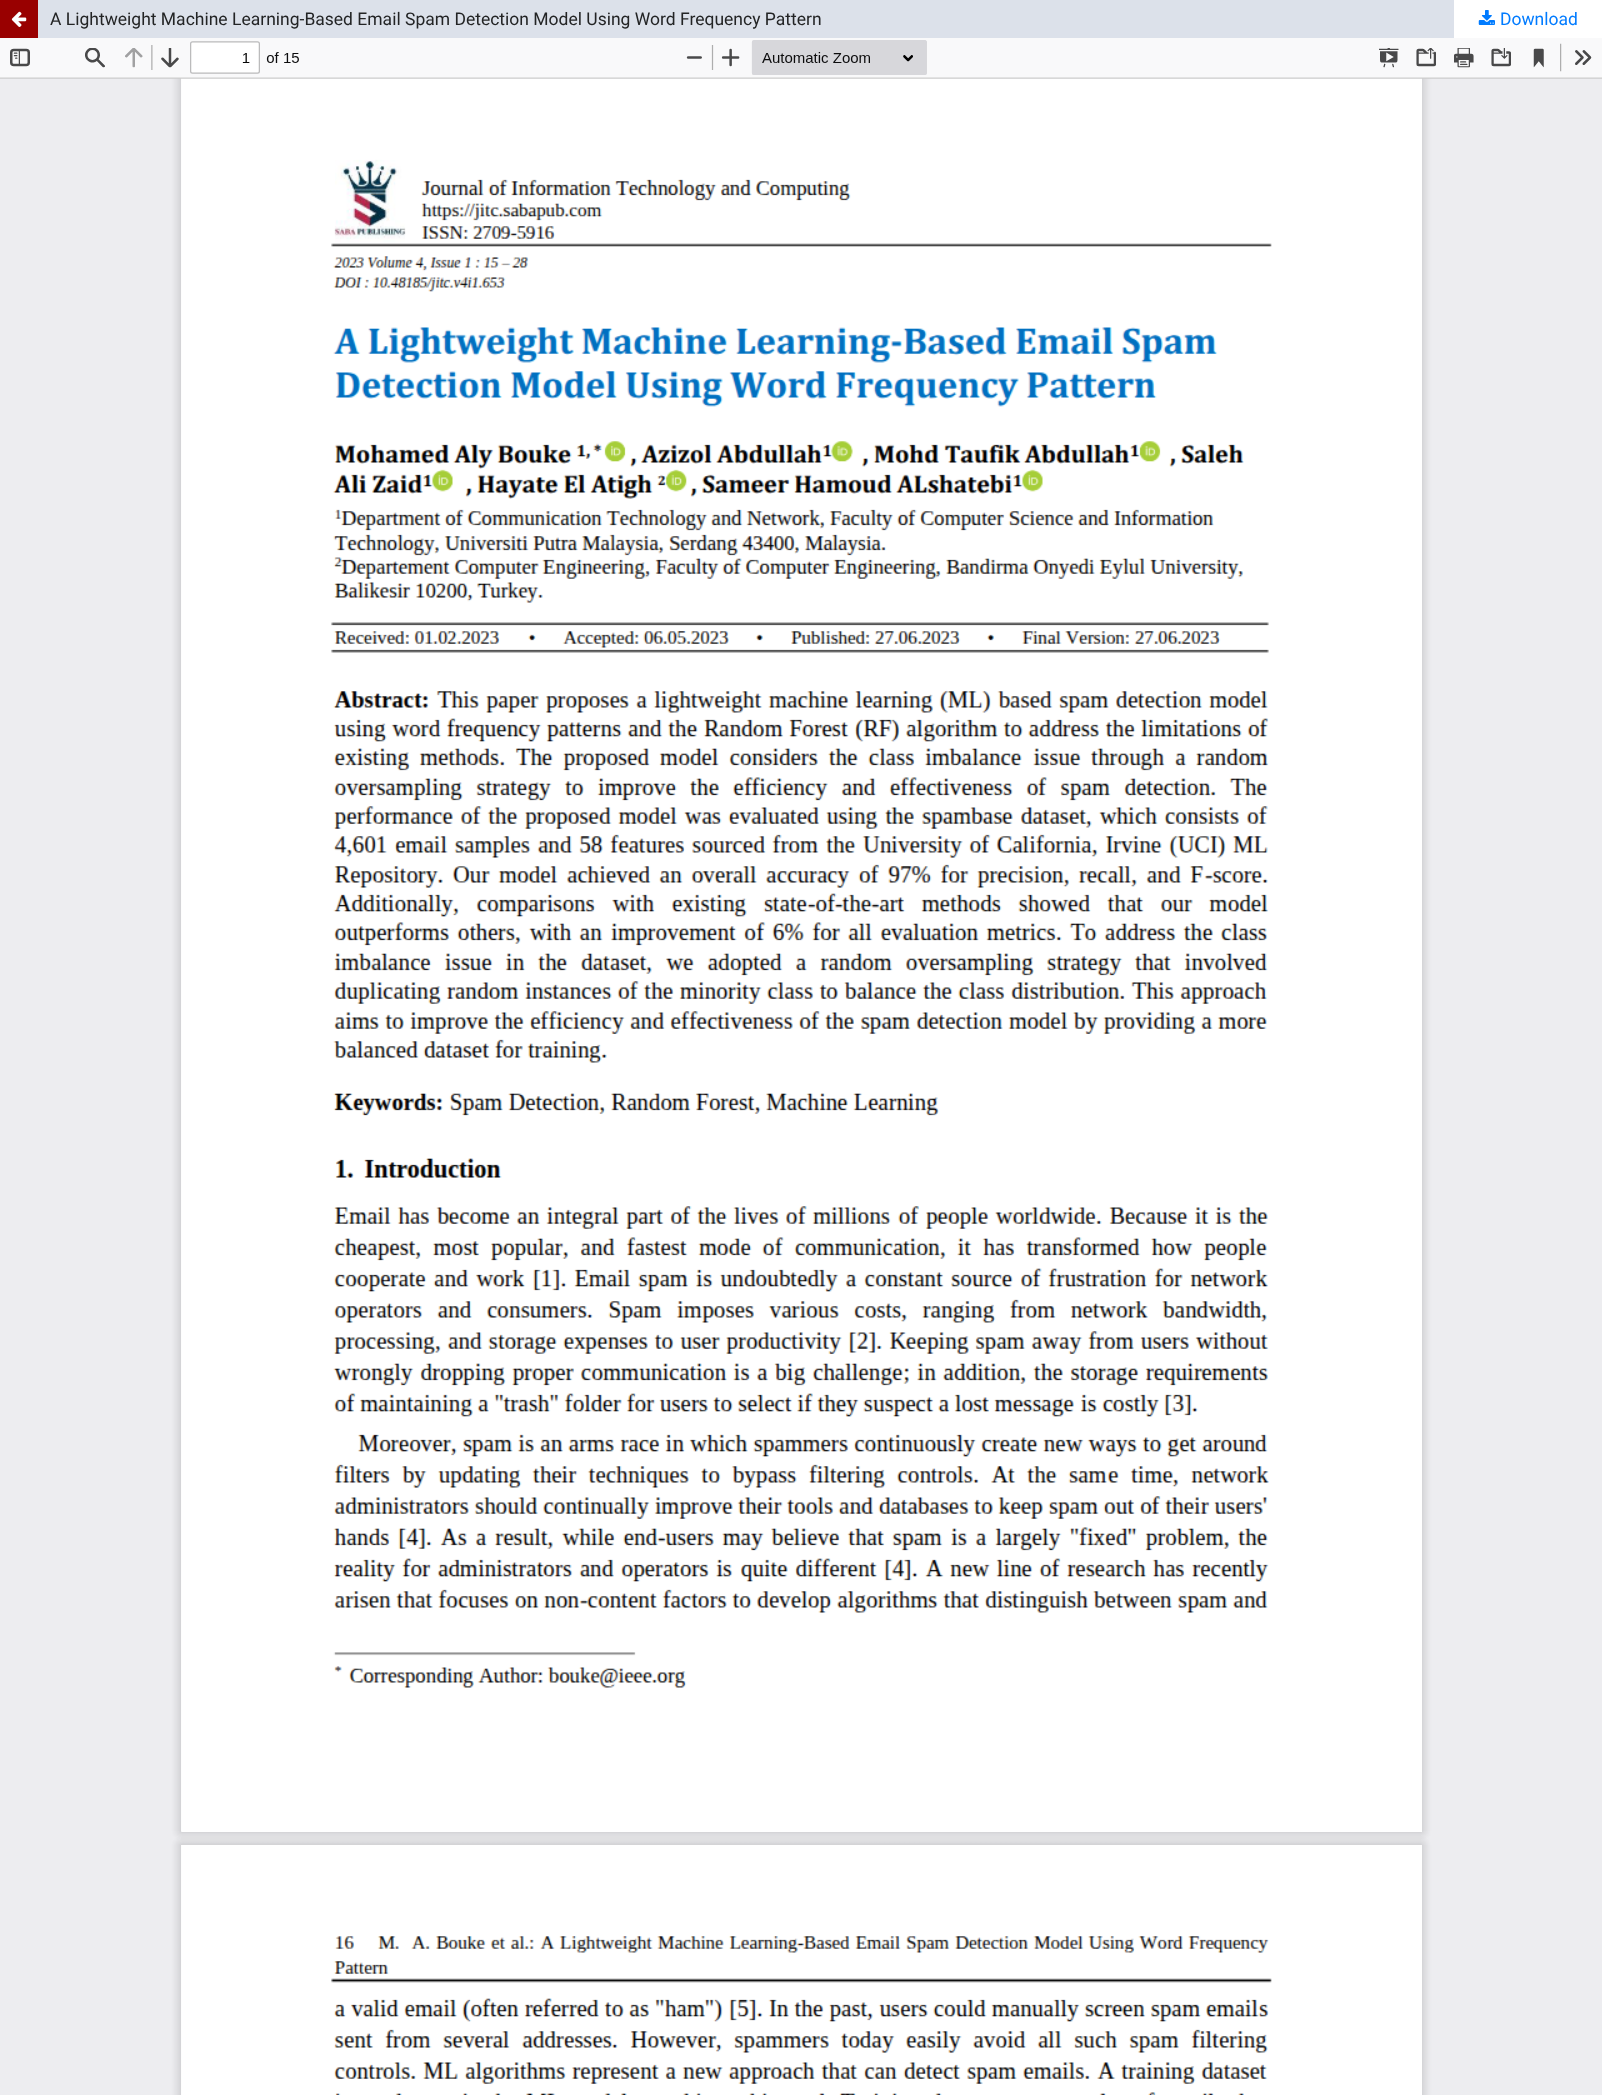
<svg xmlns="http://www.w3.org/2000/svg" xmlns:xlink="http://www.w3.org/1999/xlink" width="1602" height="2095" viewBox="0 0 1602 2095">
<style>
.cls-1{font:17.5px Roboto;fill:#232425}
.cls-2{font:17.5px Roboto;fill:#007bff}
</style>
<rect width="100%" height="100%" fill="#ffffff"/>
<rect fill="#dce1ea" x="38" y="0" width="1416" height="38"/>
<rect fill="#990000" x="0" y="0" width="38" height="38"/>
<image xlink:href="image0.png" x="11" y="11" width="16" height="16"/>
<image xlink:href="image1.png" x="1478" y="10" width="17" height="15"/>
<image xlink:href="image2.png" x="0" y="38" width="1602" height="2057"/>
<text class="cls-1" x="50" y="25">A Lightweight Machine Learning-Based Email Spam Detection Model Using Word Frequency Pattern</text>
<text class="cls-2" x="1500" y="25">Download</text>
</svg>
